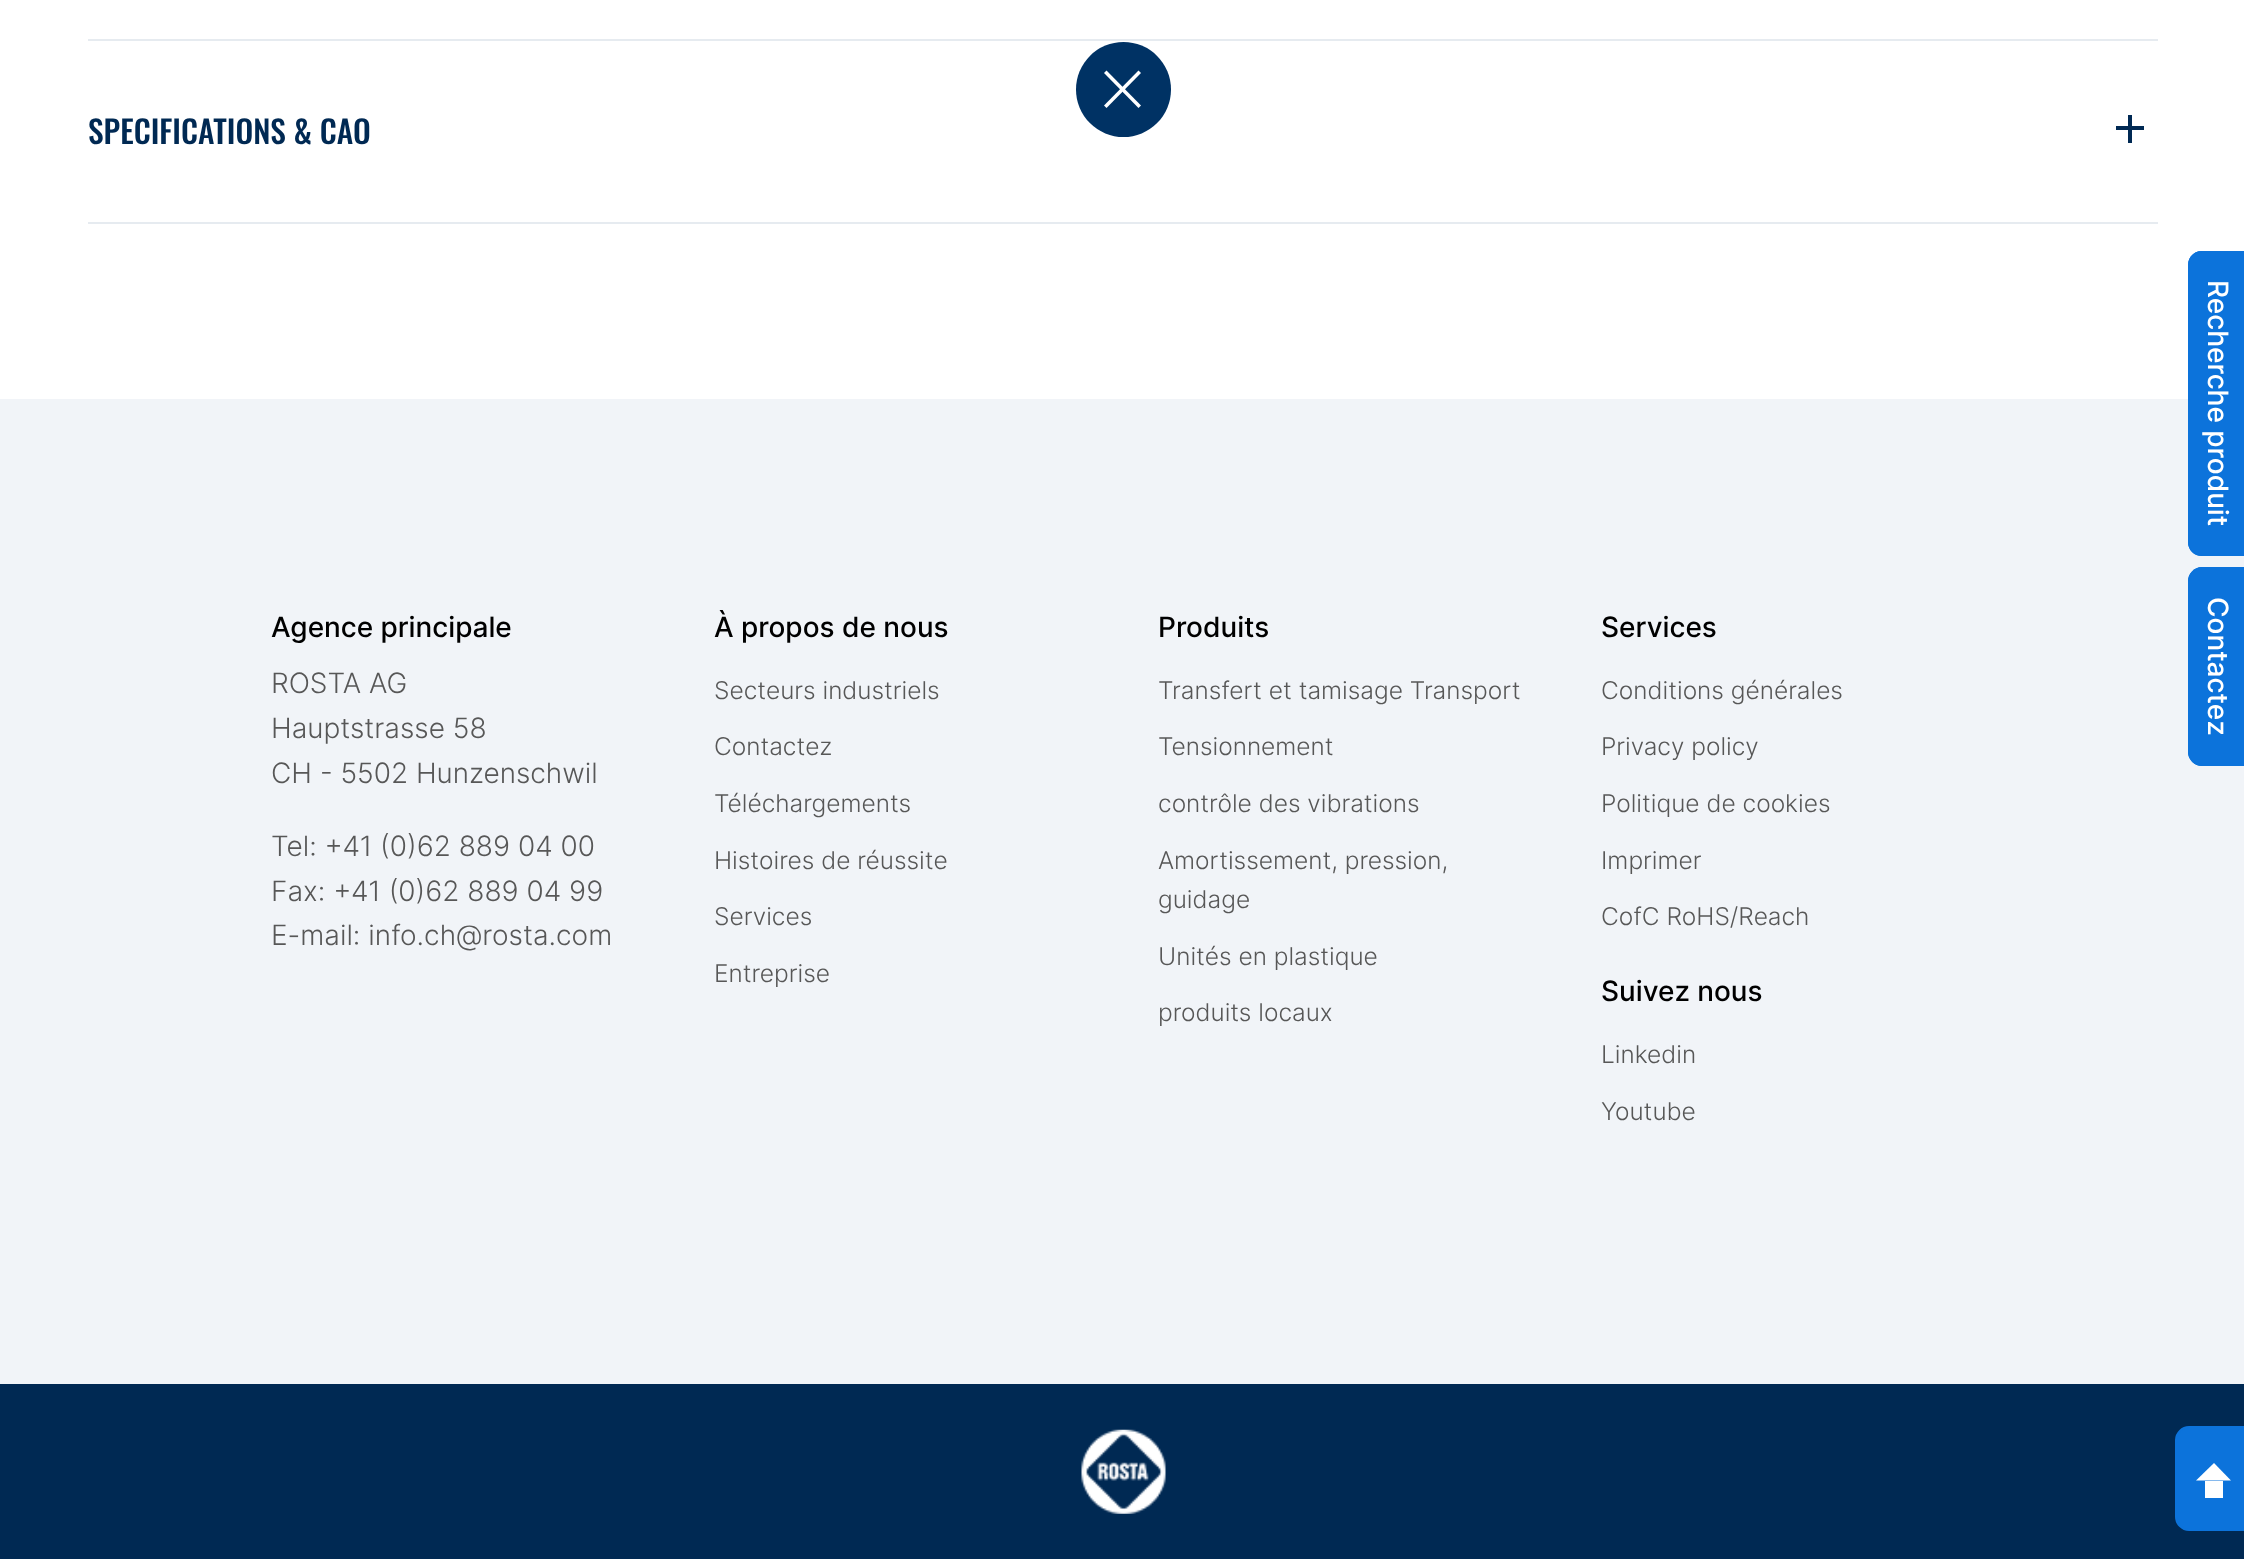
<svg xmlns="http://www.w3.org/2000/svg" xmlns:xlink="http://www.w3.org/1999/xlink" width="2244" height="1559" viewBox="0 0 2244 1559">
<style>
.cls-1{font:500 31.5px Oswald;fill:#002953}
.cls-2{font:500 28px Inter;fill:#ffffff}
.cls-3{font:500 28px Inter;fill:#000000}
.cls-4{font:300 28px Inter;fill:#575757}
.cls-5{font:300 24.5px Inter;fill:#575757}
</style>
<rect width="100%" height="100%" fill="#ffffff"/>
<rect fill="#e6ebf0" x="88" y="39" width="2070" height="2"/>
<rect fill="#e6ebf0" x="88" y="222" width="2070" height="2"/>
<rect fill="#002953" x="2116" y="126" width="28" height="4"/>
<rect fill="#002953" x="2128" y="115" width="4" height="28"/>
<circle fill="#003264" cx="1123.5" cy="89.5" r="47.5"/>
<path fill="#ffffff" d="M1106.5 70.5L1141 105.5L1138.5 108L1104 73Z"/>
<path fill="#ffffff" d="M1104 105.5L1138.5 70.5L1141 73L1106.5 108Z"/>
<rect fill="#f1f4f8" x="0" y="399" width="2244" height="985"/>
<path fill="#0c73db" d="M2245 251V556H2202C2194 556 2188 550 2188 542V265C2188 257 2194 251 2202 251Z"/>
<path fill="#0c73db" fill-rule="evenodd" d="M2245 251V556H2202C2194 556 2188 550 2188 542V265C2188 257 2194 251 2202 251ZM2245 252V555H2202C2195 555 2189 549 2189 542V265C2189 258 2195 252 2202 252Z"/>
<path fill="#0c73db" d="M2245 567V766H2202C2194 766 2188 759 2188 752V581C2188 574 2194 567 2202 567Z"/>
<path fill="#0c73db" fill-rule="evenodd" d="M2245 567V766H2202C2194 766 2188 759 2188 752V581C2188 574 2194 567 2202 567ZM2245 569V764H2202C2195 764 2189 758 2189 752V581C2189 575 2195 569 2202 569Z"/>
<rect fill="#002953" x="0" y="1384" width="2244" height="175"/>
<image xlink:href="image0.png" x="1081" y="1429" width="85" height="85"/>
<path fill="#0c73db" stroke="#0c73db" stroke-width="2" d="M2189 1427H2244V1530H2189C2182 1530 2176 1524 2176 1517V1440C2176 1433 2182 1427 2189 1427Z"/>
<path fill="#ffffff" d="M2231 1480.5H2196L2214 1463Z"/>
<rect fill="#ffffff" x="2205" y="1481" width="18" height="17"/>
<text class="cls-1" x="88" y="144">SPECIFICATIONS &amp; CAO</text>
<text class="cls-2" x="2208" y="280" transform="rotate(90 2208 280)">Recherche produit</text>
<text class="cls-2" x="2208" y="597" transform="rotate(90 2208 597)">Contactez</text>
<text class="cls-3" x="271" y="637">Agence principale</text>
<text class="cls-4"><tspan x="271" y="693">ROSTA AG</tspan><tspan x="271" y="738">Hauptstrasse 58</tspan><tspan x="271" y="783">CH - 5502 Hunzenschwil</tspan></text>
<text class="cls-4"><tspan x="271" y="856">Tel: +41 (0)62 889 04 00</tspan><tspan x="271" y="901">Fax: +41 (0)62 889 04 99</tspan><tspan x="271" y="945">E-mail: inf</tspan></text>
<text class="cls-4" x="400" y="945">o.ch@r</text>
<text class="cls-4" x="492" y="945">osta.com</text>
<text class="cls-3" x="714" y="637">À propos de nous</text>
<text class="cls-5" x="714" y="699">Secteurs industriels</text>
<text class="cls-5" x="714" y="755">Contactez</text>
<text class="cls-5" x="714" y="812">Téléchargements</text>
<text class="cls-5" x="714" y="869">Histoires de réussite</text>
<text class="cls-5" x="714" y="925">Services</text>
<text class="cls-5" x="714" y="982">Entreprise</text>
<text class="cls-3" x="1158" y="637">Produits</text>
<text class="cls-5" x="1158" y="699">Transfert et tamisage Transport</text>
<text class="cls-5" x="1158" y="755">Tensionnement</text>
<text class="cls-5" x="1158" y="812">contrôle des vibrations</text>
<text class="cls-5"><tspan x="1158" y="869">Amortissement, pression,</tspan><tspan x="1158" y="908">guidage</tspan></text>
<text class="cls-5" x="1158" y="965">Unités en plastique</text>
<text class="cls-5" x="1158" y="1021">produits locaux</text>
<text class="cls-3" x="1601" y="637">Services</text>
<text class="cls-5" x="1601" y="699">Conditions générales</text>
<text class="cls-5" x="1601" y="755">Privacy policy</text>
<text class="cls-5" x="1601" y="812">Politique de cookies</text>
<text class="cls-5" x="1601" y="869">Imprimer</text>
<text class="cls-5" x="1601" y="925">CofC RoHS/Reach</text>
<text class="cls-3" x="1601" y="1001">Suivez nous</text>
<text class="cls-5" x="1601" y="1063">Linkedin</text>
<text class="cls-5" x="1601" y="1120">Youtube</text>
</svg>
